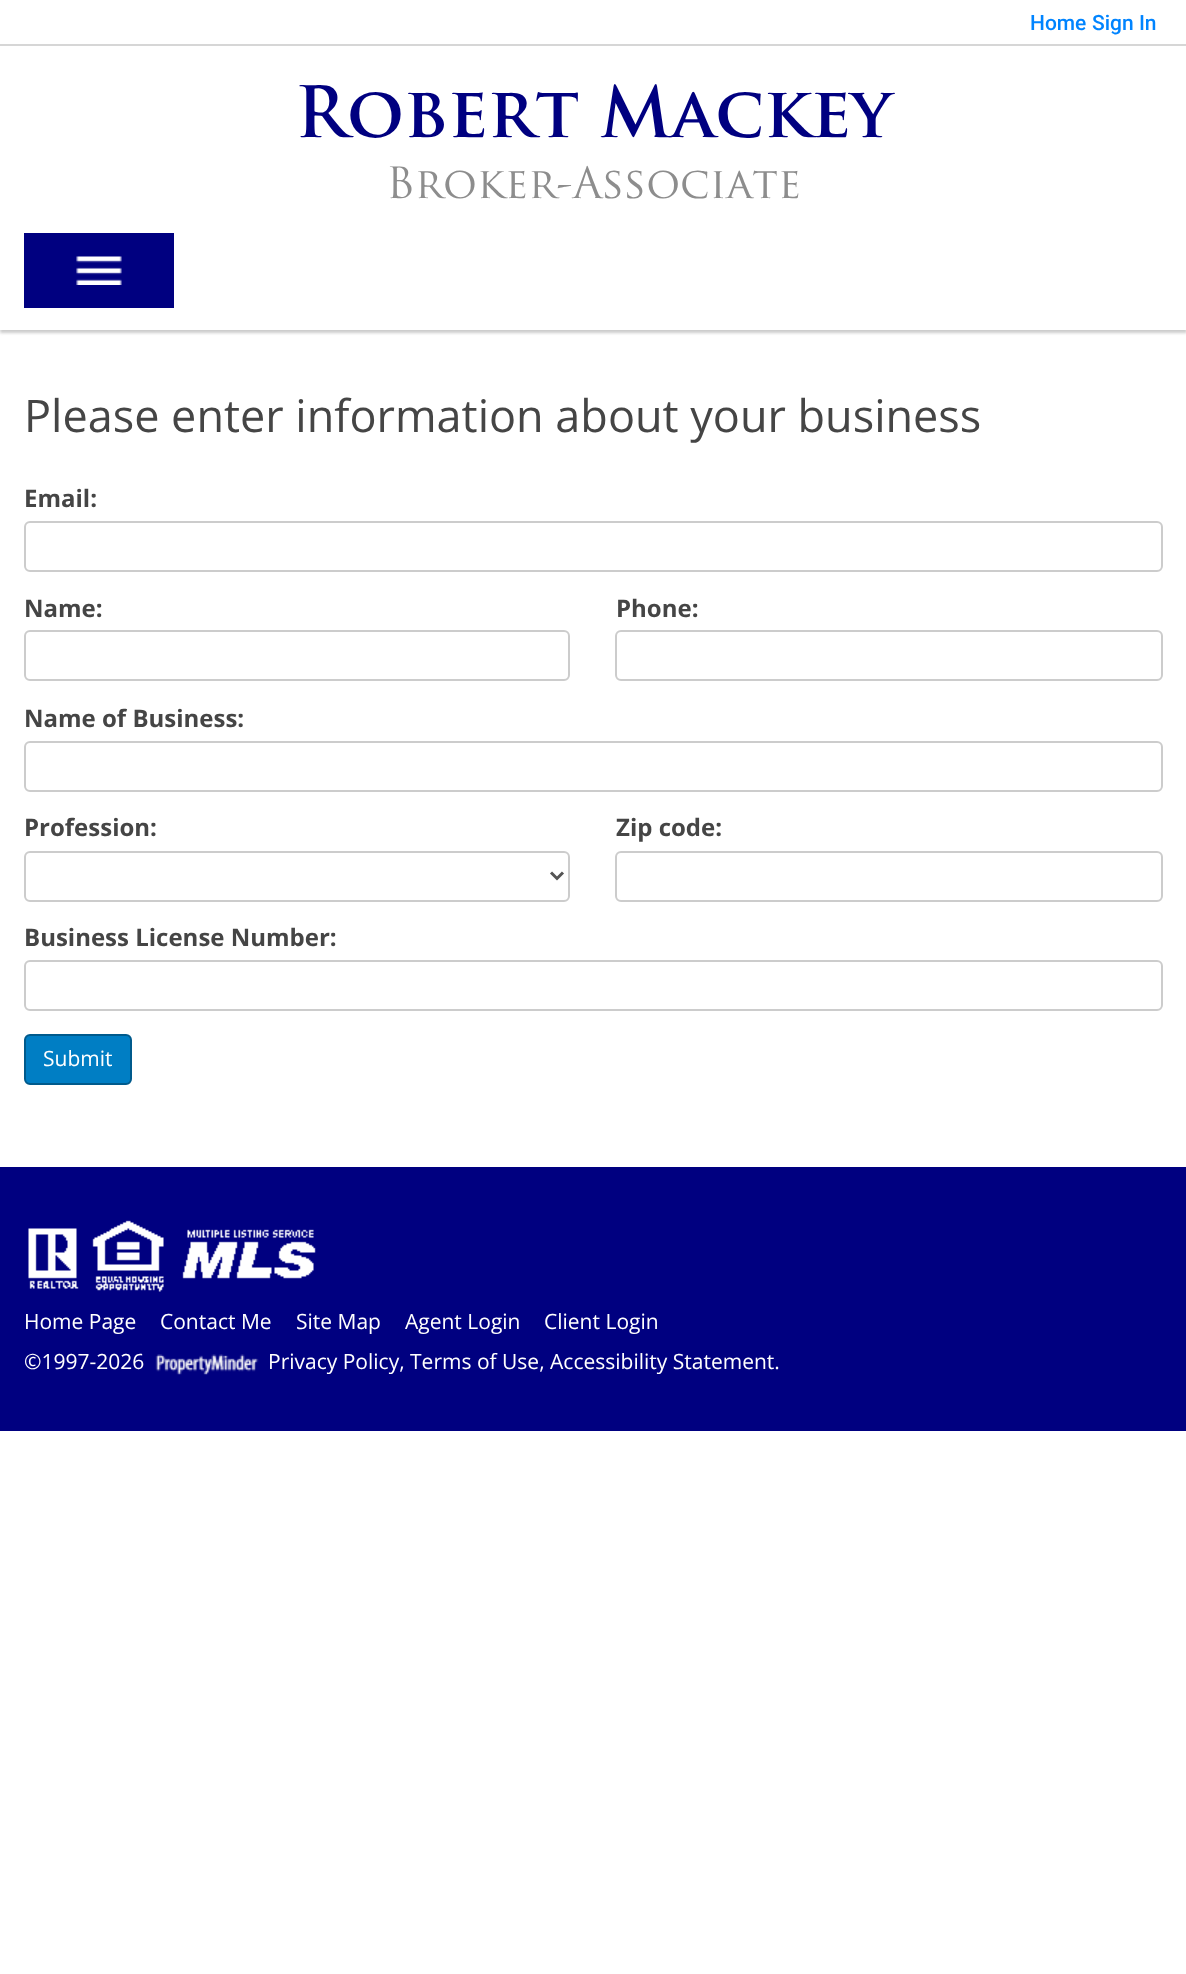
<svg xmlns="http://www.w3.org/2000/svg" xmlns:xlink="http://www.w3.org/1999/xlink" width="1186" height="1974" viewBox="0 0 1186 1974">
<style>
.cls-1{font:500 21px Roboto;fill:#0084ff}
.cls-2{font:bold 69px 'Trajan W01';fill:#000080}
.cls-3{font:42px 'Trajan W01';fill:#8d8d8d}
.cls-4{font:45px Open Sans;fill:#454545}
.cls-5{font:bold 24px Open Sans;fill:#454545}
.cls-6{font:21px Open Sans;fill:#ffffff}
</style>
<defs>
<clipPath id="clip1"><rect x="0" y="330" width="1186" height="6"/></clipPath>
</defs>
<rect width="100%" height="100%" fill="#ffffff"/>
<g clip-path="url(#clip1)">
<rect fill="#cccccc" filter="blur(1.5px)" x="0" y="48" width="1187" height="285"/>
</g>
<rect fill="#d6d6d6" x="0" y="44" width="1186" height="2"/>
<rect fill="#000080" x="24" y="233" width="150" height="75"/>
<image xlink:href="image0.png" x="76" y="256" width="46" height="29"/>
<rect fill="none" stroke="#cccccc" stroke-width="2" x="25" y="522" width="1137" height="49" rx="5"/>
<rect fill="none" stroke="#cccccc" stroke-width="2" x="25" y="631" width="544" height="49" rx="5"/>
<rect fill="none" stroke="#cccccc" stroke-width="2" x="616" y="631" width="546" height="49" rx="5"/>
<rect fill="none" stroke="#cccccc" stroke-width="2" x="25" y="742" width="1137" height="49" rx="5"/>
<rect fill="none" stroke="#cccccc" stroke-width="2" x="25" y="852" width="544" height="49" rx="5"/>
<path fill="none" stroke="#555555" stroke-width="3" d="M551 872.5L557 878.5L563 872.5"/>
<rect fill="none" stroke="#cccccc" stroke-width="2" x="616" y="852" width="546" height="49" rx="5"/>
<rect fill="none" stroke="#cccccc" stroke-width="2" x="25" y="961" width="1137" height="49" rx="5"/>
<rect fill="#007ec4" stroke="#005a8c" stroke-width="2" x="25" y="1035" width="106" height="49" rx="5"/>
<rect fill="#000080" x="0" y="1167" width="1186" height="264"/>
<image xlink:href="image1.png" x="28" y="1220" width="288" height="72"/>
<image xlink:href="image2.png" x="155" y="1354" width="104" height="21"/>
<text class="cls-1" x="1030" y="30">Home</text>
<text class="cls-1" x="1092" y="30">Sign In</text>
<text class="cls-2" x="295" y="137">Robert Mackey</text>
<text class="cls-3" x="386" y="198">Broker-Associate</text>
<text class="cls-4" x="24" y="432">Please enter information about your business</text>
<text class="cls-5" x="24" y="507">Email:</text>
<text class="cls-5" x="24" y="617">Name:</text>
<text class="cls-5" x="616" y="617">Phone:</text>
<text class="cls-5" x="24" y="727">Name of Business:</text>
<text class="cls-5" x="24" y="836">Profession:</text>
<text class="cls-5" x="616" y="836">Zip code:</text>
<text class="cls-5" x="24" y="946">Business License Number:</text>
<text class="cls-6" x="43" y="1066">Submit</text>
<text class="cls-6" x="24" y="1329">Home Page</text>
<text class="cls-6" x="160" y="1329">Contact Me</text>
<text class="cls-6" x="296" y="1329">Site Map</text>
<text class="cls-6" x="405" y="1329">Agent Login</text>
<text class="cls-6" x="544" y="1329">Client Login</text>
<text class="cls-6" x="24" y="1369">©1997-2026</text>
<text class="cls-6" x="268" y="1369">Privacy Policy, Terms of Use, Accessibility Statement.</text>
</svg>
